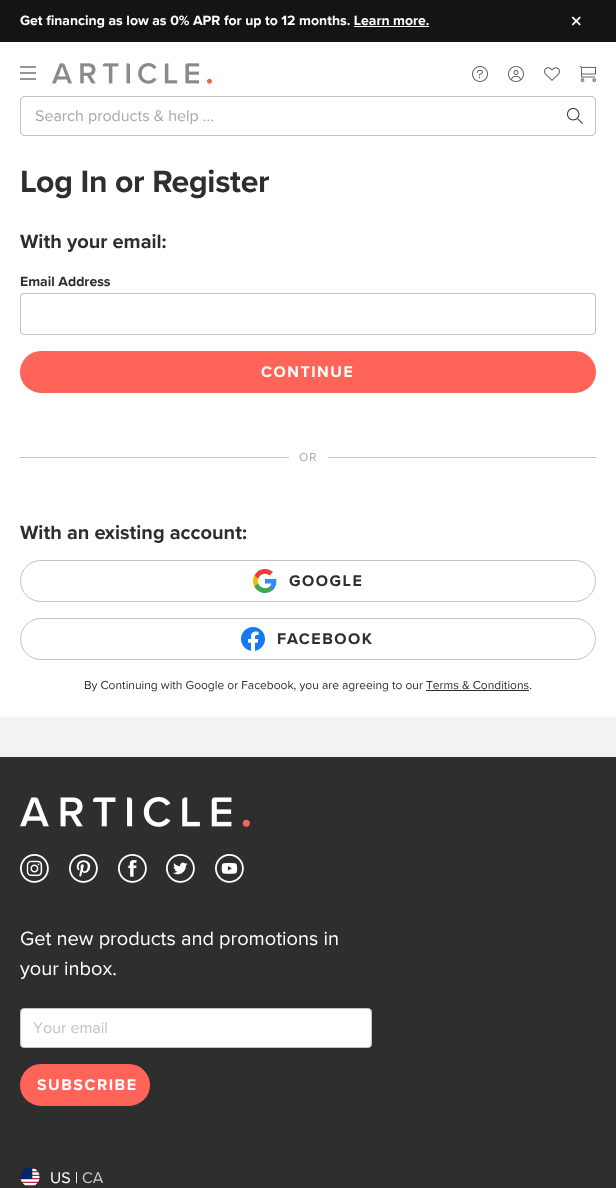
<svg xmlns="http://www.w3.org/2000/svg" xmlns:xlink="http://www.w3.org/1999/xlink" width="616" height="1188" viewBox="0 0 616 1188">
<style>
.cls-1{font:bold 14px Proxima Nova;fill:#ffffff}
.cls-2{font:16px Proxima Nova;fill:#a7a7a7}
.cls-3{font:bold 32px Proxima Nova;letter-spacing:-0.3px;fill:#2e2e2e}
.cls-4{font:bold 20px Proxima Nova;fill:#2e2e2e}
.cls-5{font:bold 14px Proxima Nova;fill:#2e2e2e}
.cls-6{font:bold 16px Proxima Nova;letter-spacing:1.5px;fill:#ffffff}
.cls-7{font:12px Proxima Nova;letter-spacing:1px;fill:#a7a7a7}
.cls-8{font:bold 16px Proxima Nova;letter-spacing:1.5px;fill:#2e2e2e}
.cls-9{font:12px Proxima Nova;fill:#2e2e2e}
.cls-10{font:20px Proxima Nova;fill:#ffffff}
.cls-11{font:16px Proxima Nova;fill:#c2c2c2}
.cls-12{font:16px Proxima Nova;fill:#ffffff}
.cls-13{font:16px Proxima Nova;fill:#cacaca}
</style>
<rect width="100%" height="100%" fill="#ffffff"/>
<rect fill="#141414" x="0" y="0" width="616" height="42"/>
<rect fill="#ffffff" x="354" y="26" width="75" height="1"/>
<image xlink:href="image0.png" x="571" y="16" width="10" height="10"/>
<image xlink:href="image1.png" x="20" y="66" width="16" height="14"/>
<image xlink:href="image2.png" x="52" y="63" width="160" height="21"/>
<image xlink:href="image3.png" x="472" y="66" width="16" height="16"/>
<image xlink:href="image4.png" x="508" y="66" width="16" height="16"/>
<image xlink:href="image5.png" x="544" y="67" width="16" height="14"/>
<image xlink:href="image6.png" x="580" y="66" width="16" height="16"/>
<rect fill="none" stroke="#c2c2c2" x="20.5" y="96.5" width="575" height="39" rx="3.5"/>
<image xlink:href="image7.png" x="567" y="108" width="16" height="16"/>
<rect fill="#f2f2f2" x="0" y="717" width="616" height="40"/>
<rect fill="none" stroke="#c2c2c2" x="20.5" y="293.5" width="575" height="41" rx="3.5"/>
<rect fill="#ff6458" stroke="#ff6458" stroke-width="2" x="21" y="352" width="574" height="40" rx="20"/>
<rect fill="#c2c2c2" x="20" y="457" width="576" height="1"/>
<rect fill="#ffffff" x="289" y="457" width="39" height="1"/>
<rect fill="none" stroke="#c2c2c2" x="20.5" y="560.5" width="575" height="41" rx="20.5"/>
<image xlink:href="image8.png" x="253" y="569" width="24" height="24"/>
<rect fill="none" stroke="#c2c2c2" x="20.5" y="618.5" width="575" height="41" rx="20.5"/>
<image xlink:href="image9.png" x="241" y="627" width="24" height="24"/>
<rect fill="#2e2e2e" x="426" y="690" width="103" height="1"/>
<rect fill="#2e2e2e" x="0" y="757" width="616" height="431"/>
<image xlink:href="image10.png" x="20" y="797" width="230" height="30"/>
<image xlink:href="image11.png" x="20" y="854" width="29" height="29"/>
<image xlink:href="image12.png" x="69" y="854" width="29" height="29"/>
<image xlink:href="image13.png" x="118" y="854" width="29" height="29"/>
<image xlink:href="image14.png" x="166" y="854" width="29" height="29"/>
<image xlink:href="image15.png" x="215" y="854" width="29" height="29"/>
<rect fill="#ffffff" stroke="#c2c2c2" x="20.5" y="1008.5" width="351" height="39" rx="3.5"/>
<rect fill="#ff6458" stroke="#ff6458" stroke-width="2" x="21" y="1065" width="128" height="40" rx="20"/>
<image xlink:href="image16.png" x="20" y="1167" width="20" height="20"/>
<text class="cls-1" x="20" y="25">Get financing as low as 0% APR for up to 12 months. Learn more.</text>
<text class="cls-2" x="35" y="121">Search products &amp; help ...</text>
<text class="cls-3" x="20" y="192">Log In or Register</text>
<text class="cls-4" x="20" y="248">With your email:</text>
<text class="cls-5" x="20" y="286">Email Address</text>
<text class="cls-6" x="261" y="377">CONTINUE</text>
<text class="cls-7" x="299" y="461">OR</text>
<text class="cls-4" x="20" y="539">With an existing account:</text>
<text class="cls-8" x="289" y="586">GOOGLE</text>
<text class="cls-8" x="277" y="644">FACEBOOK</text>
<text class="cls-9" x="84" y="689">By Continuing with Google or Facebook, you are agreeing to our Terms &amp; Conditions.</text>
<text class="cls-10"><tspan x="20" y="945">Get new products and promotions in</tspan><tspan x="20" y="975">your inbox.</tspan></text>
<text class="cls-11" x="33" y="1033">Your email</text>
<text class="cls-6" x="37" y="1090">SUBSCRIBE</text>
<text class="cls-12" x="50" y="1183">US |</text>
<text class="cls-13" x="82" y="1183">CA</text>
</svg>
